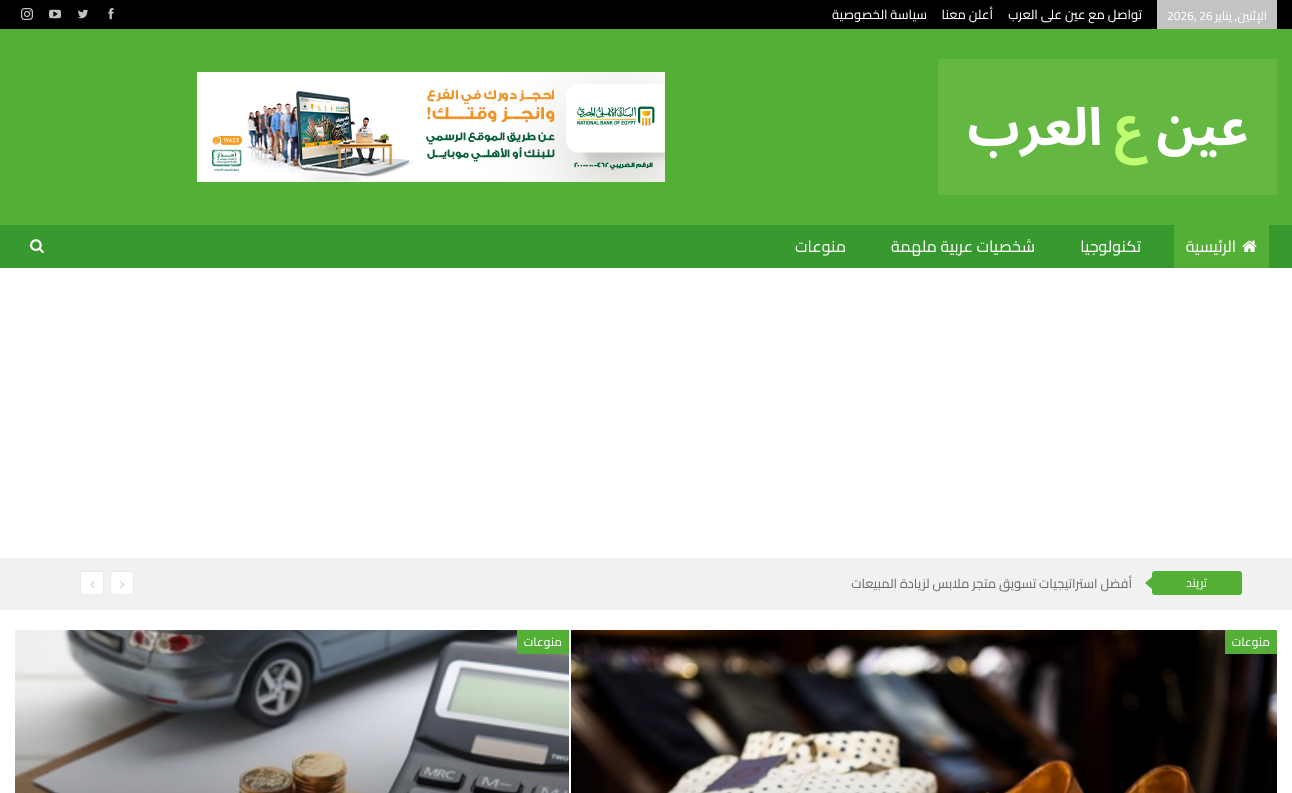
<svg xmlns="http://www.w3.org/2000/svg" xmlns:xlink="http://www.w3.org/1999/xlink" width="1292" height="793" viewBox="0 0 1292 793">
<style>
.cls-1{font:12px Cairo;direction:rtl;fill:#ffffff}
.cls-2{font:12px Cairo;fill:#ffffff}
.cls-3{font:13px Cairo;direction:rtl;fill:#ffffff}
.cls-4{font:16px Cairo;direction:rtl;fill:#ffffff}
.cls-5{font:13px Cairo;direction:rtl;fill:#696969}
</style>
<rect width="100%" height="100%" fill="#ffffff"/>
<rect fill="#54af36" x="0" y="29" width="1292" height="196"/>
<rect fill="#000000" x="0" y="0" width="1292" height="29"/>
<rect fill="#c3c3c3" x="1157" y="0" width="120" height="29"/>
<image xlink:href="image0.png" x="108" y="8" width="6" height="12"/>
<image xlink:href="image1.png" x="78" y="9" width="11" height="10"/>
<image xlink:href="image2.png" x="49" y="9" width="12" height="10"/>
<image xlink:href="image3.png" x="21" y="8" width="12" height="12"/>
<image xlink:href="image4.png" x="938" y="59" width="339" height="136"/>
<image xlink:href="image5.png" x="197" y="72" width="468" height="110"/>
<rect fill="#38992f" x="0" y="225" width="1292" height="43"/>
<rect fill="#54af36" x="1174" y="225" width="95" height="43"/>
<image xlink:href="image6.png" x="1242" y="240" width="15" height="12"/>
<image xlink:href="image7.png" x="30" y="239" width="14" height="15"/>
<rect fill="#f1f1f1" x="0" y="558" width="1292" height="52"/>
<rect fill="#54af36" x="1152" y="571" width="90" height="24" rx="3"/>
<path fill="#54af36" d="M1152 577V589L1145 583Z"/>
<rect fill="#ffffff" stroke="#eaeaea" x="110.5" y="571.5" width="23" height="23" rx="2.5"/>
<image xlink:href="image8.png" x="120" y="581" width="5" height="8"/>
<rect fill="#ffffff" stroke="#eaeaea" x="80.5" y="571.5" width="23" height="23" rx="2.5"/>
<image xlink:href="image9.png" x="90" y="581" width="5" height="8"/>
<image xlink:href="image10.png" x="571" y="630" width="706" height="163"/>
<rect fill="#54af36" x="1225" y="630" width="52" height="24"/>
<image xlink:href="image11.png" x="15" y="630" width="554" height="163"/>
<rect fill="#54af36" x="517" y="630" width="52" height="24"/>
<text class="cls-1" x="1267" y="20">الإثنين, يناير</text>
<text class="cls-2" x="1167" y="20">2026, 26</text>
<text class="cls-3" x="1142" y="19">تواصل مع عين على العرب</text>
<text class="cls-3" x="993" y="19">أعلن معنا</text>
<text class="cls-3" x="927" y="19">سياسة الخصوصية</text>
<text class="cls-4" x="1236" y="252">الرئيسية</text>
<text class="cls-4" x="1141" y="252">تكنولوجيا</text>
<text class="cls-4" x="1035" y="252">شخصيات عربية ملهمة</text>
<text class="cls-4" x="846" y="252">منوعات</text>
<text class="cls-1" x="1207" y="587">تريند</text>
<text class="cls-5" x="1132" y="588">أفضل استراتيجيات تسويق متجر ملابس لزيادة المبيعات</text>
<text class="cls-1" x="1270" y="646">منوعات</text>
<text class="cls-1" x="562" y="646">منوعات</text>
</svg>
